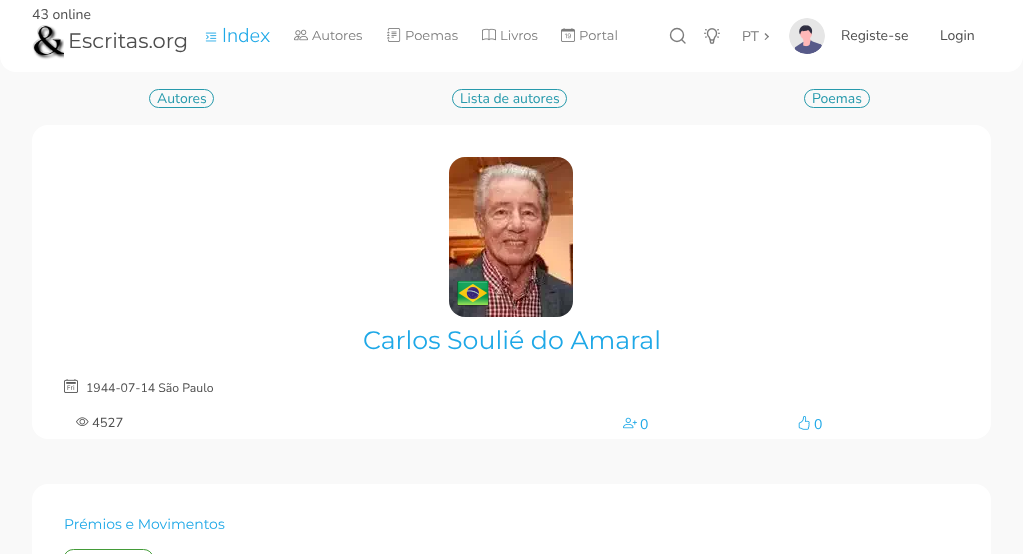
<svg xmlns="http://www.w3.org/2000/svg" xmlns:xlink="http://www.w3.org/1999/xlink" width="1023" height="554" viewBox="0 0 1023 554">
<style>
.cls-1{font:14px Nunito Sans;fill:#4e4e4e}
.cls-2{font:21px Montserrat;fill:#4e4e4e}
.cls-3{font:300 20px Nunito Sans;fill:#1ea8e7}
.cls-4{font:13px Montserrat;fill:#7c7c7c}
.cls-5{font:14px Nunito Sans;fill:#7c7c7c}
.cls-6{font:14px Nunito Sans;fill:#279aac}
.cls-7{font:25.25px Montserrat;fill:#1ea8e7}
.cls-8{font:12.25px Nunito Sans;fill:#4e4e4e}
.cls-9{font:13px Nunito Sans;fill:#4e4e4e}
.cls-10{font:14px Nunito Sans;fill:#1ea8e7}
.cls-11{font:14px Montserrat;fill:#1ea8e7}
</style>
<rect width="100%" height="100%" fill="#f9f9f9"/>
<path fill="#ffffff" d="M0 0H1023V56C1023 65 1016 72 1007 72H16C7 72 0 65 0 56Z"/>
<image xlink:href="image0.png" x="32" y="25" width="32" height="35"/>
<image xlink:href="image1.png" x="205" y="32" width="12" height="10"/>
<image xlink:href="image2.png" x="294" y="29" width="14" height="12"/>
<image xlink:href="image3.png" x="387" y="28" width="14" height="14"/>
<image xlink:href="image4.png" x="482" y="28" width="14" height="13"/>
<image xlink:href="image5.png" x="561" y="28" width="14" height="14"/>
<circle fill="none" stroke="#7c7c7c" stroke-width="1.4" cx="677" cy="35" r="6.5"/>
<path fill="none" stroke="#7c7c7c" stroke-width="1.4" stroke-linecap="round" stroke-linejoin="round" d="M681.5 39.5L685 43"/>
<image xlink:href="image6.png" x="704" y="28" width="16" height="16"/>
<path fill="#7c7c7c" d="M765.5 33L769 36.5L768 37.5L764.5 34Z"/>
<path fill="#7c7c7c" d="M768 36L769 36.5L765.5 40L764.5 39.5Z"/>
<image xlink:href="image7.png" x="789" y="18" width="36" height="36"/>
<rect fill="none" stroke="#279aac" x="149.5" y="89.5" width="64" height="18" rx="9"/>
<rect fill="none" stroke="#279aac" x="452.5" y="89.5" width="114" height="18" rx="9"/>
<rect fill="none" stroke="#279aac" x="804.5" y="89.5" width="65" height="18" rx="9"/>
<rect fill="#ffffff" x="32" y="125" width="959" height="314" rx="16"/>
<image xlink:href="image8.png" x="449" y="157" width="124" height="160"/>
<image xlink:href="image9.png" x="457" y="280" width="32" height="26"/>
<image xlink:href="image10.png" x="64" y="379" width="14" height="14"/>
<image xlink:href="image11.png" x="76" y="417" width="13" height="9"/>
<image xlink:href="image12.png" x="623" y="417" width="14" height="12"/>
<image xlink:href="image13.png" x="798" y="416" width="12" height="14"/>
<rect fill="#ffffff" x="32" y="484" width="959" height="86" rx="16"/>
<rect fill="none" stroke="#439b38" x="64.5" y="549.5" width="88" height="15" rx="9"/>
<text class="cls-1" x="32" y="19">43 online</text>
<text class="cls-2" x="68" y="48">Escritas.org</text>
<text class="cls-3" x="222" y="42">Index</text>
<text class="cls-4" x="312" y="40">Autores</text>
<text class="cls-4" x="405" y="40">Poemas</text>
<text class="cls-4" x="500" y="40">Livros</text>
<text class="cls-4" x="579" y="40">Portal</text>
<text class="cls-5" x="742" y="41">PT</text>
<text class="cls-1" x="841" y="40">Registe-se</text>
<text class="cls-1" x="940" y="40">Login</text>
<text class="cls-6" x="157" y="103">Autores</text>
<text class="cls-6" x="460" y="103">Lista de autores</text>
<text class="cls-6" x="812" y="103">Poemas</text>
<text class="cls-7" x="363" y="349">Carlos Soulié do Amaral</text>
<text class="cls-8" x="86" y="392">1944-07-14 São Paulo</text>
<text class="cls-9" x="92" y="427">4527</text>
<text class="cls-10" x="640" y="429">0</text>
<text class="cls-10" x="814" y="429">0</text>
<text class="cls-11" x="64" y="529">Prémios e Movimentos</text>
</svg>
